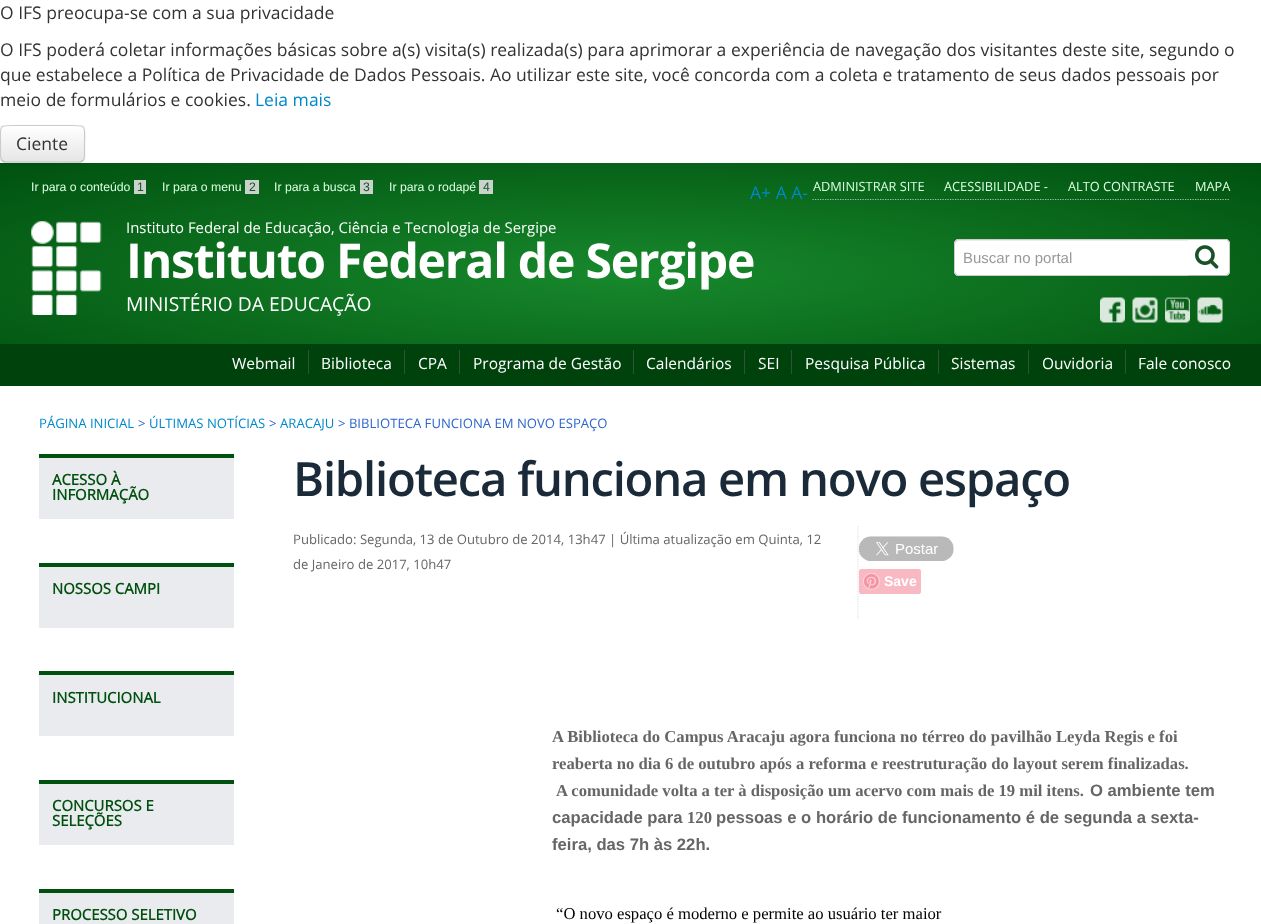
<svg xmlns="http://www.w3.org/2000/svg" xmlns:xlink="http://www.w3.org/1999/xlink" width="1261" height="924" viewBox="0 0 1261 924">
<style>
.cls-1{font:17.5px Open Sans;fill:#333333}
.cls-2{font:17.5px Open Sans;fill:#0088cc}
.cls-3{font:12.25px Liberation Sans;fill:#dcffe3}
.cls-4{font:12.25px Liberation Sans;fill:#195128}
.cls-5{font:12.75px Open Sans;fill:#dcffe3}
.cls-6{font:14.9px Open Sans;fill:#ffffff}
.cls-7{font:bold 48.1px Open Sans;letter-spacing:-1.25px;fill:#ffffff}
.cls-8{font:19.25px Open Sans;fill:#ffffff}
.cls-9{font:15px Liberation Sans;fill:#999999}
.cls-10{font:15.5px Open Sans;fill:#ffffff}
.cls-11{font:13.1px Open Sans;fill:#0088cc}
.cls-12{font:13.1px Open Sans;fill:#2c66ce}
.cls-13{font:bold 14.9px 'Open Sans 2';fill:#00500f}
.cls-14{font:600 47.25px Open Sans;letter-spacing:-1.25px;fill:#1a2a39}
.cls-15{font:13.1px Open Sans;fill:#666666}
.cls-16{font:bold 14px Liberation Sans;fill:#ffffff}
.cls-17{font:bold 16.65px Liberation Serif;fill:#666666}
.cls-18{font:bold 16.65px Liberation Sans;fill:#666666}
.cls-19{font:16.65px Liberation Serif;fill:#000000}
</style>
<defs>
<radialGradient id="g1" gradientUnits="userSpaceOnUse" cx="0" cy="0" r="1" gradientTransform="matrix(892 0 0 157 631 274)"><stop offset="0.01" stop-color="#17882c"/><stop offset="1" stop-color="#00510f"/></radialGradient>
<clipPath id="clip1"><rect x="0" y="125" width="85" height="38" rx="5"/></clipPath>
<linearGradient id="g2" gradientUnits="userSpaceOnUse" x1="43" y1="126" x2="43" y2="161"><stop offset="0" stop-color="#ffffff"/><stop offset="1" stop-color="#e6e6e6"/></linearGradient>
</defs>
<rect width="100%" height="100%" fill="#ffffff"/>
<rect fill="url(#g1)" x="0" y="163" width="1261" height="181"/>
<rect fill="#000000" fill-opacity="0.05" filter="blur(1px)" x="0" y="126" width="85" height="38" rx="5"/>
<rect fill="#f5f5f5" x="0" y="125" width="85" height="38" rx="5"/>
<g clip-path="url(#clip1)">
<rect fill="url(#g2)" x="0" y="126" width="85" height="35"/>
</g>
<path fill="none" stroke="#b3b3b3" stroke-width="1.2" d="M83 160.5L80.5 162H4.5L2 160.5"/>
<path fill="none" stroke="#cccccc" stroke-width="1.2" d="M2 160.5C0 158.5 .5 155.5 .5 153V144C.5 124-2.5 125.5 17.5 125.5H67.5C87.5 125.5 84.5 124 84.5 144V153C84.5 155.5 85 158.5 83 160.5"/>
<rect fill="#cad2cc" x="134" y="180" width="12" height="14"/>
<rect fill="#cad2cc" x="245" y="180" width="14" height="14"/>
<rect fill="#cad2cc" x="360" y="180" width="13" height="14"/>
<rect fill="#cad2cc" x="479" y="180" width="14" height="14"/>
<path fill="none" stroke="#abbeb0" stroke-width="1.2" stroke-dasharray="1.25 1.25" d="M812.5 199.5H1230"/>
<image xlink:href="image0.png" x="31" y="221" width="71" height="94"/>
<path fill="#ffffff" d="M959 239H1189V276H959C956 276 954 274 954 271V244C954 241 956 239 959 239Z"/>
<path fill="#ececec" d="M959 241H1189V240H959C956 240 955 242 955 245C955 243 957 241 959 241Z"/>
<path fill="#cccccc" fill-rule="evenodd" d="M959 239H1189V276H959C956 276 954 274 954 271V244C954 241 956 239 959 239ZM959 240H1189V275H959C957 275 955 273 955 271V244C955 242 957 240 959 240Z"/>
<path fill="#ffffff" d="M1188 239H1225C1228 239 1230 241 1230 244V271C1230 274 1228 276 1225 276H1188Z"/>
<path fill="#cccccc" d="M1188 239H1225C1226 239 1228 239 1228 240V241C1227 240 1226 240 1225 240H1188Z"/>
<path fill="#cccccc" d="M1228.5 240.5C1229.5 241 1230 242.5 1230 244V271C1230 272.5 1229.5 274 1228.5 274.5L1227.5 274C1228.5 273 1229 272 1229 271V244C1229 243 1228.5 242 1227.5 241Z"/>
<path fill="#b3b3b3" d="M1228 275V274C1227 275 1226 275 1225 275H1188V276H1225C1226 276 1228 276 1228 275Z"/>
<image xlink:href="image1.png" x="1195" y="245" width="24" height="24"/>
<image xlink:href="image2.png" x="1100" y="297" width="25" height="26"/>
<image xlink:href="image3.png" x="1132" y="297" width="26" height="26"/>
<image xlink:href="image4.png" x="1165" y="297" width="25" height="26"/>
<image xlink:href="image5.png" x="1197" y="297" width="26" height="26"/>
<rect fill="#00420c" x="0" y="344" width="1261" height="42"/>
<rect fill="#2f5439" x="308" y="350" width="1" height="24"/>
<rect fill="#2f5439" x="404" y="350" width="1" height="24"/>
<rect fill="#2f5439" x="459" y="350" width="1" height="24"/>
<rect fill="#2f5439" x="633" y="350" width="1" height="24"/>
<rect fill="#2f5439" x="744" y="350" width="1" height="24"/>
<rect fill="#2f5439" x="791" y="350" width="1" height="24"/>
<rect fill="#2f5439" x="938" y="350" width="1" height="24"/>
<rect fill="#2f5439" x="1028" y="350" width="1" height="24"/>
<rect fill="#2f5439" x="1125" y="350" width="1" height="24"/>
<rect fill="#eaebee" x="39" y="458" width="195" height="61"/>
<rect fill="#00500f" x="39" y="454" width="195" height="4"/>
<rect fill="#eaebee" x="39" y="567" width="195" height="61"/>
<rect fill="#00500f" x="39" y="563" width="195" height="4"/>
<rect fill="#eaebee" x="39" y="675" width="195" height="61"/>
<rect fill="#00500f" x="39" y="671" width="195" height="4"/>
<rect fill="#eaebee" x="39" y="784" width="195" height="61"/>
<rect fill="#00500f" x="39" y="780" width="195" height="4"/>
<rect fill="#eaebee" x="39" y="893" width="195" height="31"/>
<rect fill="#00500f" x="39" y="889" width="195" height="4"/>
<path fill="none" stroke="#e3e3e3" stroke-width="1.2" stroke-dasharray="1.25 1.25" d="M858 526V619"/>
<image xlink:href="image6.png" x="859" y="536" width="95" height="25"/>
<rect fill="#f8b9c3" x="859" y="569" width="62" height="25" rx="2.5"/>
<image xlink:href="image7.png" x="863" y="573" width="17" height="17"/>
<text class="cls-1" x="0" y="19">O IFS preocupa-se com a sua privacidade</text>
<text class="cls-1"><tspan x="0" y="56">O IFS poderá coletar informações básicas sobre a(s) visita(s) realizada(s) para aprimorar a experiência de navegação dos visitantes deste site, segundo o</tspan><tspan x="0" y="81">que estabelece a Política de Privacidade de Dados Pessoais. Ao utilizar este site, você concorda com a coleta e tratamento de seus dados pessoais por</tspan><tspan x="0" y="106">meio de formulários e cookies.</tspan></text>
<text class="cls-2" x="255" y="106">Leia mais</text>
<text class="cls-1" x="16" y="150">Ciente</text>
<text class="cls-3" x="31" y="191">Ir para o conteúdo</text>
<text class="cls-4" x="137" y="191">1</text>
<text class="cls-3" x="162" y="191">Ir para o menu</text>
<text class="cls-4" x="249" y="191">2</text>
<text class="cls-3" x="274" y="191">Ir para a busca</text>
<text class="cls-4" x="363" y="191">3</text>
<text class="cls-3" x="389" y="191">Ir para o rodapé</text>
<text class="cls-4" x="483" y="191">4</text>
<text class="cls-2" x="750" y="199">A+ A A-</text>
<text class="cls-5" x="813" y="191">ADMINISTRAR SITE</text>
<text class="cls-5" x="944" y="191">ACESSIBILIDADE -</text>
<text class="cls-5" x="1068" y="191">ALTO CONTRASTE</text>
<text class="cls-5" x="1195" y="191">MAPA</text>
<text class="cls-6" x="126" y="233">Instituto Federal de Educação, Ciência e Tecnologia de Sergipe</text>
<text class="cls-7" x="126" y="278">Instituto Federal de Sergipe</text>
<text class="cls-8" x="126" y="311">MINISTÉRIO DA EDUCAÇÃO</text>
<text class="cls-9" x="963" y="263">Buscar no portal</text>
<text class="cls-10" x="232" y="369">Webmail</text>
<text class="cls-10" x="321" y="369">Biblioteca</text>
<text class="cls-10" x="418" y="369">CPA</text>
<text class="cls-10" x="473" y="369">Programa de Gestão</text>
<text class="cls-10" x="646" y="369">Calendários</text>
<text class="cls-10" x="758" y="369">SEI</text>
<text class="cls-10" x="805" y="369">Pesquisa Pública</text>
<text class="cls-10" x="951" y="369">Sistemas</text>
<text class="cls-10" x="1042" y="369">Ouvidoria</text>
<text class="cls-10" x="1138" y="369">Fale conosco</text>
<text class="cls-11" x="39" y="428">PÁGINA INICIAL</text>
<text class="cls-12" x="138" y="428">&gt;</text>
<text class="cls-11" x="149" y="428">ÚLTIMAS NOTÍCIAS</text>
<text class="cls-12" x="269" y="428">&gt;</text>
<text class="cls-11" x="280" y="428">ARACAJU</text>
<text class="cls-12" x="338" y="428">&gt; BIBLIOTECA FUNCIONA EM NOVO ESPAÇO</text>
<text class="cls-13"><tspan x="52" y="485">ACESSO À</tspan><tspan x="52" y="500">INFORMAÇÃO</tspan></text>
<text class="cls-13" x="52" y="594">NOSSOS CAMPI</text>
<text class="cls-13" x="52" y="703">INSTITUCIONAL</text>
<text class="cls-13"><tspan x="52" y="811">CONCURSOS E</tspan><tspan x="52" y="826">SELEÇÕES</tspan></text>
<text class="cls-13" x="52" y="920">PROCESSO SELETIVO</text>
<text class="cls-14" x="293" y="496">Biblioteca funciona em novo espaço</text>
<text class="cls-15"><tspan x="293" y="544">Publicado: Segunda, 13 de Outubro de 2014, 13h47 | Última atualização em Quinta, 12</tspan><tspan x="293" y="569">de Janeiro de 2017, 10h47</tspan></text>
<text class="cls-16" x="884" y="586">Save</text>
<text class="cls-17"><tspan x="552" y="742">A Biblioteca do Campus Aracaju agora funciona no térreo do pavilhão Leyda Regis e foi</tspan><tspan x="552" y="769">reaberta no dia 6 de outubro após a reforma e reestruturação do layout serem finalizadas.</tspan></text>
<text class="cls-17" x="556" y="796">A comunidade volta a ter à disposição um acervo com mais de 19 mil itens.</text>
<text class="cls-18" x="1090" y="796">O ambiente tem</text>
<text class="cls-18" x="552" y="823">capacidade para</text>
<text class="cls-17" x="687" y="823">120</text>
<text class="cls-18" x="716" y="823">pessoas e o horário de funcionamento é de segunda a sexta-</text>
<text class="cls-18" x="552" y="850">feira, das 7h às 22h.</text>
<text class="cls-19" x="556" y="919">“O novo espaço é moderno e permite ao usuário ter maior</text>
</svg>
